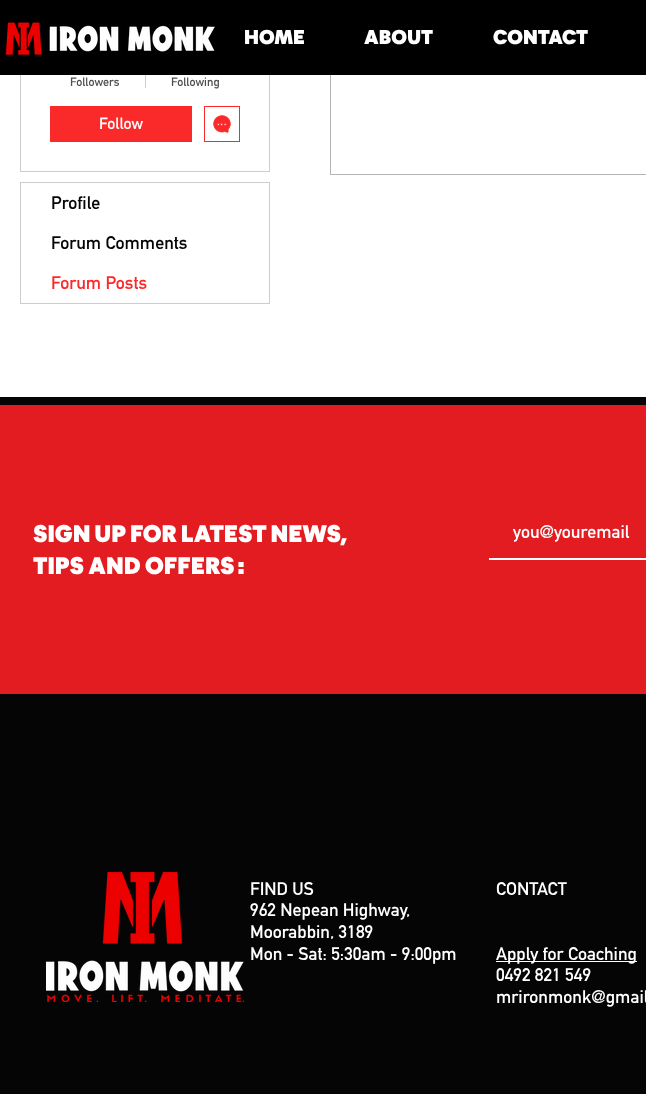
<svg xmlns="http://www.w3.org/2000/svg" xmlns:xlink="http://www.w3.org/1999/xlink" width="646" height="1094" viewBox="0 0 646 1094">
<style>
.cls-1{font:900 20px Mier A;fill:#ffffff}
.cls-2{font:bold 12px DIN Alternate;fill:#515050}
.cls-3{font:bold 16px DIN Alternate;fill:#ffffff}
.cls-4{font:bold 18px DIN Alternate;fill:#060505}
.cls-5{font:bold 18px DIN Alternate;fill:#fb2a2a}
.cls-6{font:900 24px Mier A;fill:#ffffff}
.cls-7{font:bold 18px DIN Alternate;fill:#ffffff}
</style>
<rect width="100%" height="100%" fill="#ffffff"/>
<rect fill="none" stroke="#b4b4b4" x="330.5" y="-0.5" width="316" height="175"/>
<rect fill="none" stroke="#cdcdcd" x="20.5" y="-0.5" width="249" height="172"/>
<rect fill="#000000" x="0" y="0" width="646" height="75"/>
<image xlink:href="image0.png" x="5" y="22" width="210" height="33"/>
<rect fill="#cdcdcd" x="145" y="75" width="1" height="13"/>
<rect fill="#fb2a2a" x="50" y="106" width="142" height="36"/>
<rect fill="none" stroke="#fb2a2a" x="204.5" y="106.5" width="35" height="35"/>
<image xlink:href="image1.png" x="213" y="115" width="18" height="18"/>
<rect fill="none" stroke="#cdcdcd" x="20.5" y="182.5" width="249" height="121"/>
<rect fill="#060505" x="0" y="397" width="646" height="697"/>
<rect fill="#e21c21" x="0" y="405" width="646" height="289"/>
<rect fill="#ffffff" x="489" y="558" width="157" height="2"/>
<image xlink:href="image2.png" x="46" y="872" width="198" height="130"/>
<rect fill="#ffffff" x="496" y="961" width="141" height="1"/>
<text class="cls-1" x="244" y="44">HOME</text>
<text class="cls-1" x="364" y="44">ABOUT</text>
<text class="cls-1" x="493" y="44">CONTACT</text>
<text class="cls-2" x="70" y="86">Followers</text>
<text class="cls-2" x="171" y="86">Following</text>
<text class="cls-3" x="99" y="129">Follow</text>
<text class="cls-4" x="51" y="209">Profile</text>
<text class="cls-4" x="51" y="249">Forum Comments</text>
<text class="cls-5" x="51" y="289">Forum Posts</text>
<text class="cls-6"><tspan x="33" y="542" word-spacing="-0.5">SIGN UP FOR LATEST NEWS,</tspan><tspan x="33" y="574">TIPS AND OFFERS :</tspan></text>
<text class="cls-7" x="513" y="538">you@youremail</text>
<text class="cls-7"><tspan x="250" y="895">FIND US</tspan><tspan x="250" y="916">962 Nepean Highway,</tspan><tspan x="250" y="938">Moorabbin, 3189</tspan><tspan x="250" y="960">Mon - Sat: 5:30am - 9:00pm</tspan></text>
<text class="cls-7" x="496" y="895">CONTACT</text>
<text class="cls-7"><tspan x="496" y="960">Apply for Coaching</tspan><tspan x="496" y="981">0492 821 549</tspan><tspan x="496" y="1003">mrironmonk@gmail</tspan></text>
</svg>
